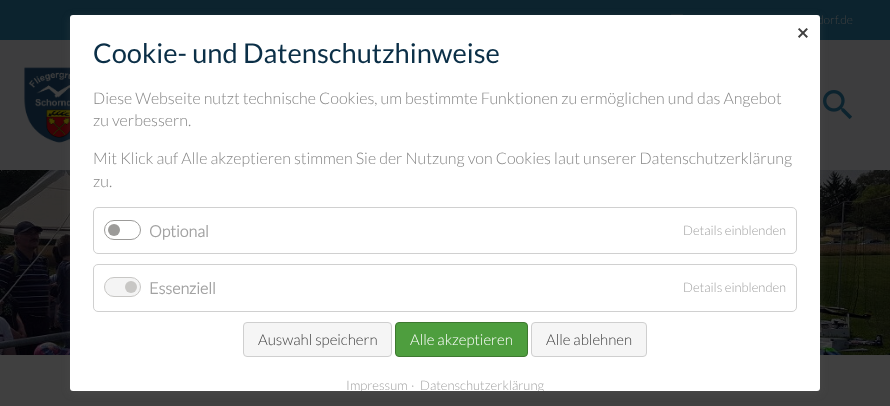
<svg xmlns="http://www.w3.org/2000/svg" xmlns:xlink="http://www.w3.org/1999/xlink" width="890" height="406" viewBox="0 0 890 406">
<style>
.cls-1{font:300 12px Lato;fill:#404040}
.cls-2{font:bold 16px DejaVu Sans;fill:#404040}
.cls-3{font:27.25px Lato;fill:#0b2f47}
.cls-4{font:300 16px Lato;fill:#868686}
.cls-5{font:bold 16px Lato;fill:#a2a2a2}
.cls-6{font:300 13px Lato;fill:#a2a2a2}
.cls-7{font:300 15px Lato;fill:#404040}
.cls-8{font:300 15px Lato;fill:#ffffff}
</style>
<defs>
<clipPath id="clip1"><rect x="70" y="15" width="750" height="376" rx="3"/></clipPath>
</defs>
<rect width="100%" height="100%" fill="#404040"/>
<rect fill="#0c232e" x="0" y="0" width="890" height="40"/>
<image xlink:href="image0.png" x="671" y="14" width="12" height="1"/>
<rect fill="#3d3d3e" x="0" y="40" width="890" height="130"/>
<image xlink:href="image1.png" x="24" y="67" width="46" height="76"/>
<image xlink:href="image2.png" x="823" y="90" width="29" height="29"/>
<image xlink:href="image3.png" x="0" y="170" width="890" height="185"/>
<rect fill="#636363" fill-opacity="0.2" filter="blur(4px)" x="70" y="17" width="750" height="376" rx="3"/>
<text class="cls-1" x="817" y="24">dorf.de</text>
<rect fill="#ffffff" x="70" y="15" width="750" height="376" rx="3"/>
<text class="cls-2" x="796" y="39">✕</text>
<text class="cls-3" x="93" y="63">Cookie- und Datenschutzhinweise</text>
<text class="cls-4"><tspan x="93" y="104">Diese Webseite nutzt technische Cookies, um bestimmte Funktionen zu ermöglichen und das Angebot</tspan><tspan x="93" y="126">zu verbessern.</tspan></text>
<text class="cls-4"><tspan x="93" y="164">Mit Klick auf Alle akzeptieren stimmen Sie der Nutzung von Cookies laut unserer Datenschutzerklärung</tspan><tspan x="93" y="187">zu.</tspan></text>
<rect fill="none" stroke="#d0d0d0" x="93.5" y="207.5" width="703" height="46" rx="4.5"/>
<rect fill="none" stroke="#9c9b99" x="104.5" y="220.5" width="36" height="19" rx="9.5"/>
<circle fill="#9c9b99" cx="114" cy="230" r="6"/>
<text class="cls-5" x="149" y="237">Optional</text>
<text class="cls-6" x="683" y="235">Details einblenden</text>
<rect fill="none" stroke="#d0d0d0" x="93.5" y="264.5" width="703" height="47" rx="4.5"/>
<rect fill="#f4f4f4" stroke="#c8c7c5" x="104.5" y="277.5" width="36" height="19" rx="9.5"/>
<circle fill="#c8c7c5" cx="131" cy="287" r="6"/>
<text class="cls-5" x="149" y="294">Essenziell</text>
<text class="cls-6" x="683" y="292">Details einblenden</text>
<rect fill="#f5f5f5" stroke="#cfcfcf" x="243.5" y="322.5" width="148" height="34" rx="3.5"/>
<text class="cls-7" x="258" y="345">Auswahl speichern</text>
<rect fill="#4e9e3e" stroke="#3e7830" x="395.5" y="322.5" width="132" height="34" rx="3.5"/>
<text class="cls-8" x="410" y="345">Alle akzeptieren</text>
<rect fill="#f5f5f5" stroke="#cfcfcf" x="531.5" y="322.5" width="115" height="34" rx="3.5"/>
<text class="cls-7" x="546" y="345">Alle ablehnen</text>
<g clip-path="url(#clip1)">
<text class="cls-6" x="346" y="390">Impressum</text>
</g>
<text class="cls-6" x="411" y="390">·</text>
<g clip-path="url(#clip1)">
<text class="cls-6" x="420" y="390">Datenschutzerklärung</text>
</g>
</svg>
